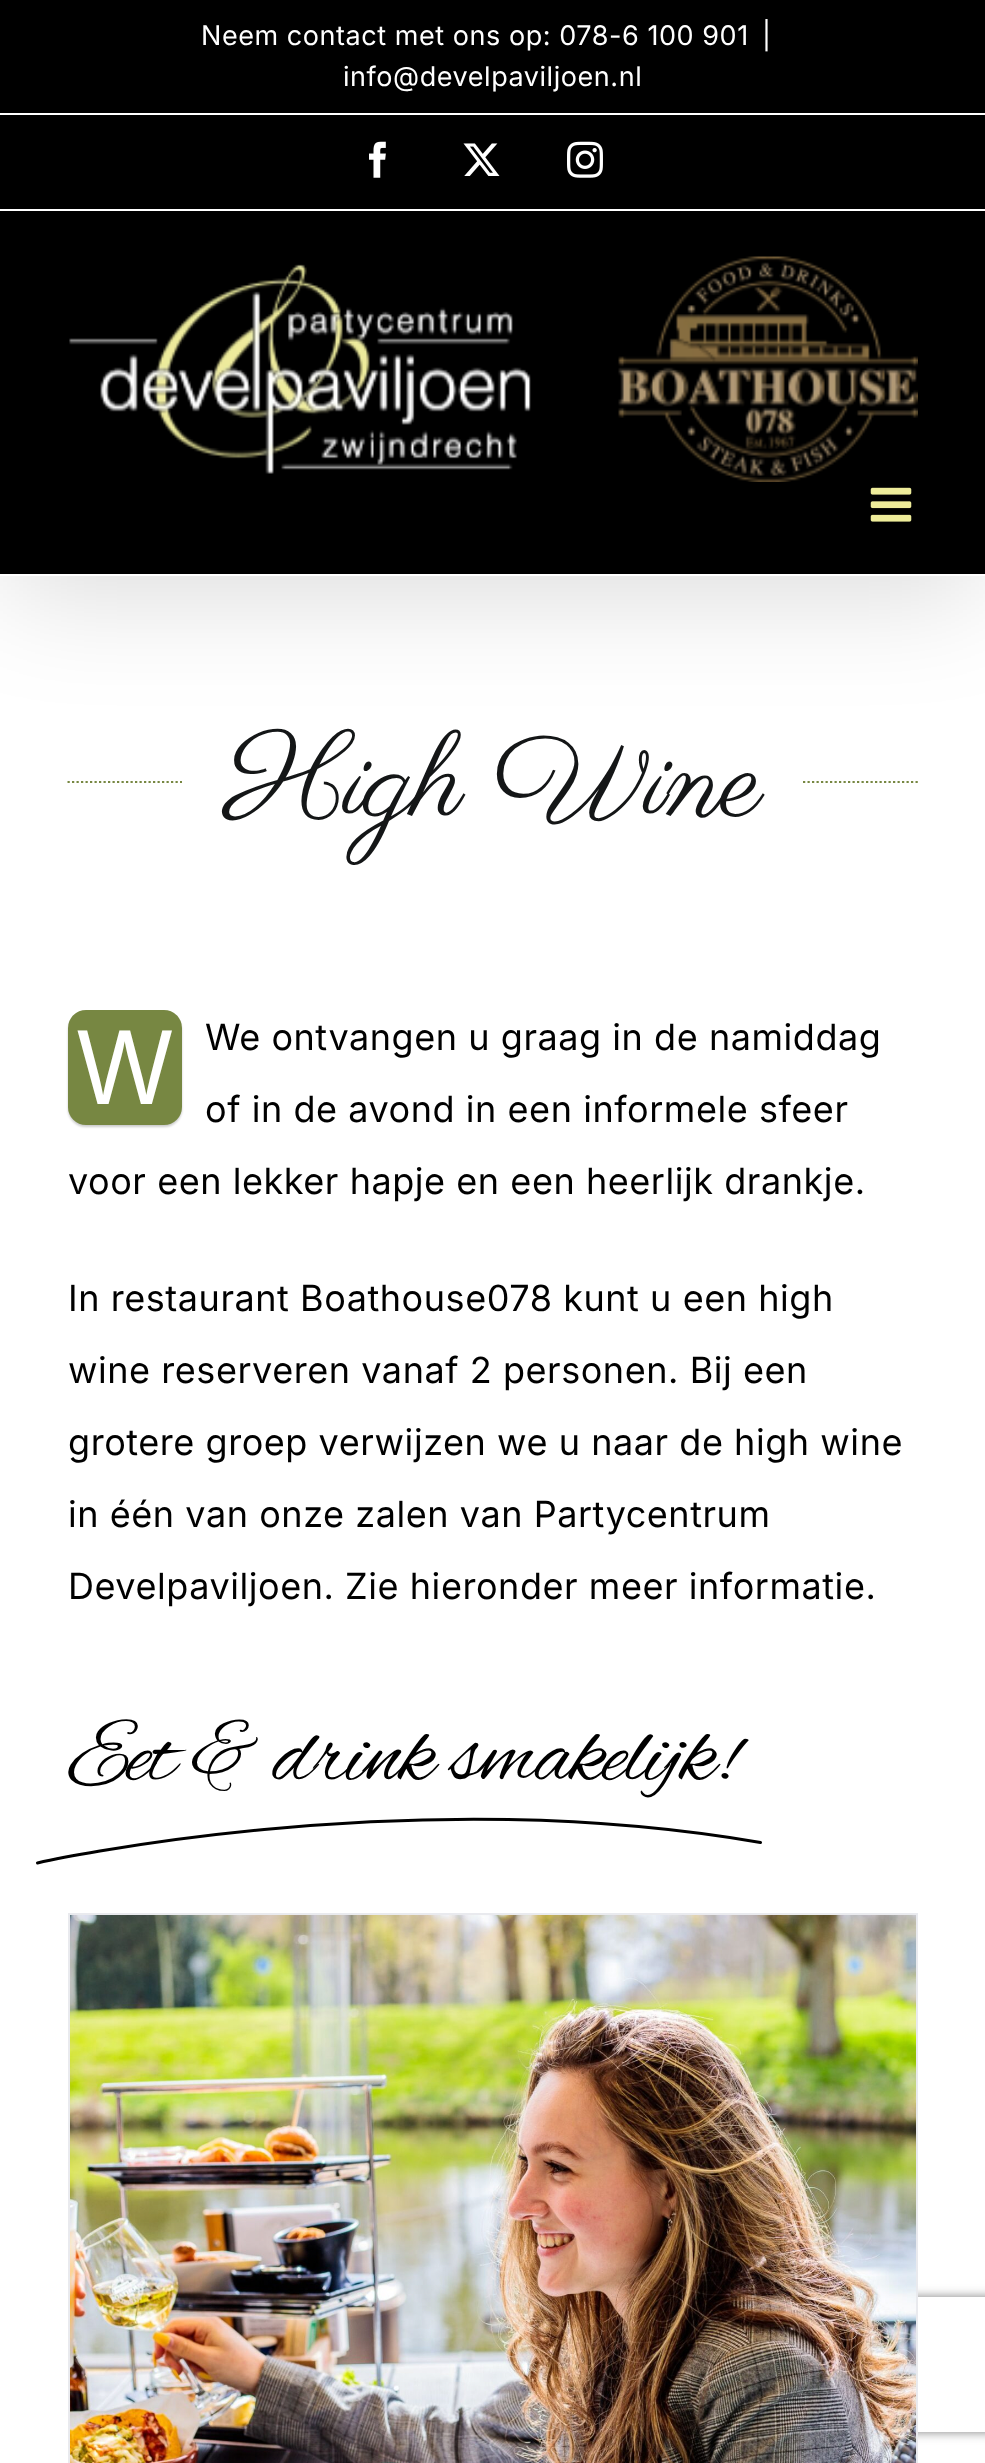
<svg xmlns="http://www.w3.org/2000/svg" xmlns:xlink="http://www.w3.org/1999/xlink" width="985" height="2463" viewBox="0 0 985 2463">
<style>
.cls-1{font:27px Inter;letter-spacing:0.55px;fill:#ffffff}
.cls-2{font:114.5px Parisienne;letter-spacing:-1.75px;fill:#141617}
.cls-3{font:36px Inter;letter-spacing:0.55px;fill:#000000}
.cls-4{font:101px Inter;letter-spacing:0.55px;fill:#ffffff}
.cls-5{font:90px Alex Brush;letter-spacing:-1.75px;fill:#000000}
</style>
<defs>
<clipPath id="clip1"><path d="M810 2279H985V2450H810ZM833 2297H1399C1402 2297 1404 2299 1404 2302V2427C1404 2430 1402 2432 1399 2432H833C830 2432 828 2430 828 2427V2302C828 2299 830 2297 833 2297Z" clip-rule="evenodd"/></clipPath>
</defs>
<rect width="100%" height="100%" fill="#ffffff"/>
<rect fill="#000000" fill-opacity="0.14" filter="blur(56px)" x="5" y="27" width="976" height="567"/>
<rect fill="#000000" x="0" y="0" width="985" height="574"/>
<rect fill="#ffffff" x="0" y="209" width="985" height="2"/>
<rect fill="#ffffff" x="0" y="113" width="985" height="2"/>
<image xlink:href="image0.png" x="369" y="141" width="17" height="37"/>
<image xlink:href="image1.png" x="463" y="143" width="37" height="33"/>
<image xlink:href="image2.png" x="567" y="141" width="36" height="37"/>
<rect fill="#ffffff" x="0" y="574" width="985" height="2"/>
<image xlink:href="image3.png" x="69" y="256" width="849" height="226"/>
<image xlink:href="image4.png" x="870" y="487" width="42" height="35"/>
<path fill="none" stroke="#778742" stroke-width="2.2" stroke-dasharray="2.25 2.25" d="M67.5 782H182"/>
<path fill="none" stroke="#778742" stroke-width="2.2" stroke-dasharray="2.25 2.25" d="M803 782H918"/>
<rect fill="#000000" fill-opacity="0.2" filter="blur(1px)" x="68" y="1013" width="114" height="114" rx="18"/>
<rect fill="#778742" x="68" y="1010" width="114" height="115" rx="18"/>
<path fill="none" stroke="#000000" stroke-width="3" stroke-linecap="round" stroke-linejoin="round" d="M37.5 1863C37.5 1863 401 1780.5 760.5 1842.5"/>
<g clip-path="url(#clip1)">
<rect fill="#808080" filter="blur(5.5px)" x="828" y="2297" width="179" height="135" rx="5"/>
</g>
<rect fill="none" stroke="#e9eaee" stroke-width="2" x="69" y="1914" width="848" height="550"/>
<image xlink:href="image5.png" x="70" y="1915" width="846" height="548"/>
<text class="cls-1" x="201" y="45">Neem contact met ons op: 078-6 100 901</text>
<text class="cls-1" x="762" y="45">|</text>
<text class="cls-1" x="343" y="86">info@develpaviljoen.nl</text>
<text class="cls-2" x="225" y="814">High Wine</text>
<text class="cls-3" x="205" y="1050">We ontvangen u graag in de namiddag</text>
<text class="cls-3" x="205" y="1122">of in de avond in een informele sfeer</text>
<text class="cls-3" x="68" y="1194">voor een lekker hapje en een heerlijk drankje.</text>
<text class="cls-4" x="75" y="1104">W</text>
<text class="cls-3" x="68" y="1311">In restaurant Boathouse078 kunt u een high</text>
<text class="cls-3" x="68" y="1383">wine reserveren vanaf 2 personen. Bij een</text>
<text class="cls-3" x="68" y="1455">grotere groep verwijzen we u naar de high wine</text>
<text class="cls-3" x="68" y="1527">in één van onze zalen van Partycentrum</text>
<text class="cls-3" x="68" y="1599">Develpaviljoen. Zie hieronder meer informatie.</text>
<text class="cls-5" x="68" y="1779">Eet &amp; drink smakelijk!</text>
</svg>
